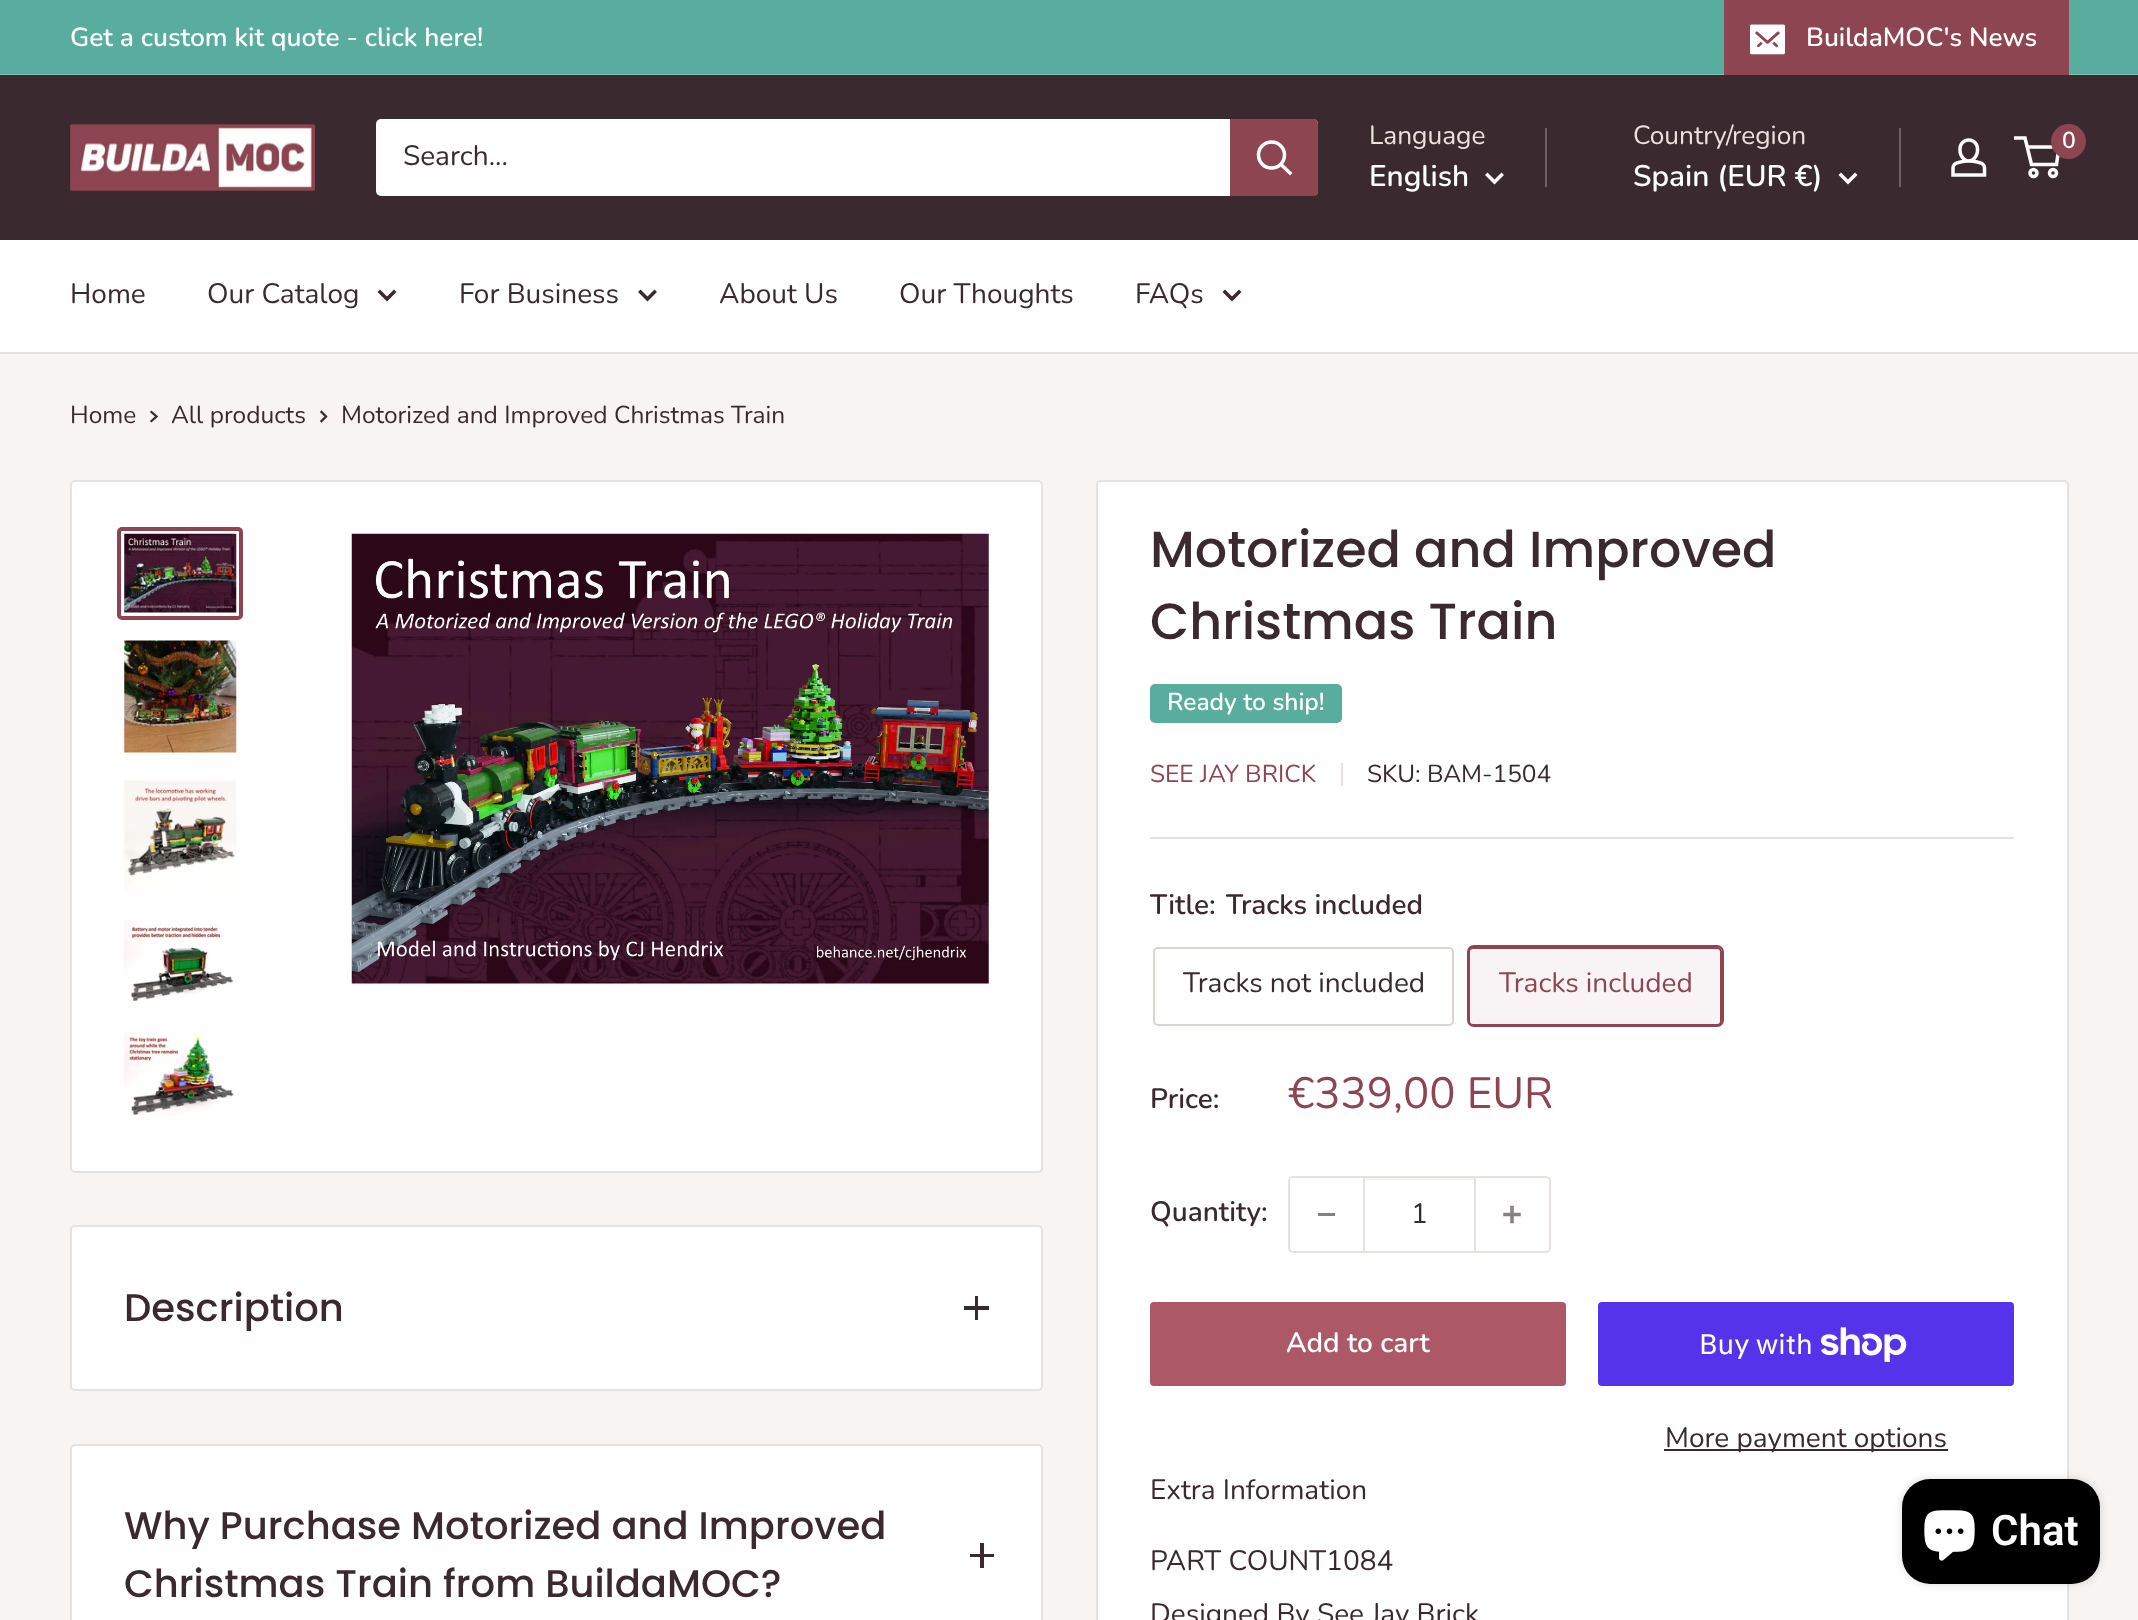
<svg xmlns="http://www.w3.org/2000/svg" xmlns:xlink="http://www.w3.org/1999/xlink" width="2138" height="1620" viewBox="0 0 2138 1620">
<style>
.cls-1{font:600 26.25px Nunito;fill:#ffffff}
.cls-2{font:28px Nunito;fill:#3a2a2f}
.cls-3{font:26.25px Nunito;fill:#e9e2dd}
.cls-4{font:600 29.75px Nunito;fill:#ffffff}
.cls-5{font:600 23px Nunito;fill:#ffffff}
.cls-6{font:24.5px Nunito;fill:#3a2a2f}
.cls-7{font:500 50.75px Poppins;fill:#3a2a2f}
.cls-8{font:600 24.5px Nunito;fill:#ffffff}
.cls-9{font:24.5px Nunito;fill:#8d4551}
.cls-10{font:600 28px Nunito;fill:#3a2a2f}
.cls-11{font:28px Nunito;fill:#8d4551}
.cls-12{font:43.75px Nunito;fill:#8d4551}
.cls-13{font:600 28px Nunito;fill:#ffffff}
.cls-14{font:28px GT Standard;fill:#ffffff}
.cls-15{font:500 38.5px Poppins;fill:#3a2a2f}
.cls-16{font:600 42px Roboto;fill:#ffffff}
</style>
<rect width="100%" height="100%" fill="#f7f4f2"/>
<rect fill="#58ad9f" x="0" y="0" width="2138" height="74"/>
<rect fill="#84bdb2" x="0" y="74" width="2138" height="1"/>
<path fill="#8d4551" d="M1724 74V75H2069V2H2068V74Z"/>
<rect fill="#8d4551" x="1724" y="0" width="345" height="74"/>
<image xlink:href="image0.png" x="1750" y="24" width="35" height="31"/>
<rect fill="#3a2a2f" x="0" y="75" width="2138" height="165"/>
<image xlink:href="image1.png" x="70" y="124" width="245" height="67"/>
<rect fill="#ffffff" x="376" y="119" width="942" height="77" rx="5"/>
<path fill="#8d4551" d="M1230 119H1313C1316 119 1318 121 1318 124V191C1318 194 1316 196 1313 196H1230Z"/>
<path fill="none" stroke="#ffffff" stroke-width="3.5" stroke-linecap="square" d="M1290 173L1281 164.5"/>
<circle fill="none" stroke="#ffffff" stroke-width="3.5" cx="1271.5" cy="155" r="13"/>
<path fill="none" stroke="#ffffff" stroke-width="3.5" stroke-linecap="square" d="M1501.5 175L1494.5 182L1487.5 175"/>
<rect fill="#6f6163" x="1545" y="128" width="2" height="59"/>
<path fill="none" stroke="#ffffff" stroke-width="3.5" stroke-linecap="square" d="M1855 175L1848 182L1841 175"/>
<rect fill="#6f6163" x="1899" y="128" width="2" height="59"/>
<image xlink:href="image2.png" x="1951" y="138" width="36" height="39"/>
<circle fill="none" stroke="#ffffff" stroke-width="3.5" cx="2033.5" cy="173" r="3.5"/>
<circle fill="none" stroke="#ffffff" stroke-width="3.5" cx="2053" cy="173" r="3.5"/>
<path fill="none" stroke="#ffffff" stroke-width="3.5" d="M2027 147H2059L2056.5 164.5H2031.5L2025 138H2014"/>
<circle fill="#8d4551" cx="2068.5" cy="141.5" r="17.5"/>
<rect fill="#ffffff" x="0" y="240" width="2138" height="112"/>
<rect fill="#e7e2de" x="0" y="352" width="2138" height="2"/>
<path fill="none" stroke="#3a2a2f" stroke-width="3.5" stroke-linecap="square" d="M394 292L387 299L380 292"/>
<path fill="none" stroke="#3a2a2f" stroke-width="3.5" stroke-linecap="square" d="M654.5 292L647.5 299L640.5 292"/>
<path fill="none" stroke="#3a2a2f" stroke-width="3.5" stroke-linecap="square" d="M1239 292L1232 299L1225 292"/>
<path fill="none" stroke="#3a2a2f" stroke-width="2.3" stroke-linecap="square" d="M151.5 412L156.5 416.5L151.5 421"/>
<path fill="none" stroke="#3a2a2f" stroke-width="2.3" stroke-linecap="square" d="M321.5 412L326 416.5L321.5 421"/>
<rect fill="#ffffff" stroke="#e7e2de" stroke-width="2" x="71" y="481" width="971" height="691" rx="4"/>
<rect fill="none" stroke="#8d4551" stroke-width="4" x="119" y="529" width="122" height="89" rx="3"/>
<image xlink:href="image3.png" x="124" y="533" width="113" height="80"/>
<image xlink:href="image4.png" x="124" y="640" width="113" height="113"/>
<image xlink:href="image5.png" x="124" y="780" width="113" height="112"/>
<image xlink:href="image6.png" x="124" y="920" width="110" height="83"/>
<image xlink:href="image7.png" x="124" y="1032" width="110" height="84"/>
<image xlink:href="image8.png" x="351" y="533" width="638" height="451"/>
<rect fill="#ffffff" stroke="#e7e2de" stroke-width="2" x="1097" y="481" width="971" height="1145" rx="4"/>
<rect fill="#58ad9f" x="1150" y="684" width="192" height="39" rx="5"/>
<rect fill="#e7e2de" x="1341" y="763" width="2" height="23"/>
<rect fill="#e7e2de" x="1150" y="837" width="864" height="2"/>
<rect fill="none" stroke="#dcd5cf" stroke-width="2" x="1154" y="948" width="299" height="77" rx="4"/>
<rect fill="none" stroke="#8d4551" stroke-width="2" x="1468" y="946" width="255" height="80" rx="6"/>
<rect fill="#8d4551" fill-opacity="0.06" x="1468" y="947" width="254" height="79"/>
<rect fill="none" stroke="#8d4551" stroke-width="2" x="1469" y="948" width="252" height="77" rx="4"/>
<rect fill="none" stroke="#e7e2de" stroke-width="2" x="1289" y="1177" width="261" height="75" rx="4"/>
<rect fill="#897f82" x="1318" y="1213" width="17" height="3"/>
<rect fill="#f5f3f2" x="1365" y="1178" width="109" height="2"/>
<rect fill="#e7e2de" x="1474" y="1178" width="2" height="73"/>
<rect fill="#e7e2de" x="1363" y="1178" width="2" height="73"/>
<image xlink:href="image9.png" x="1503" y="1205" width="18" height="19"/>
<rect fill="#ad5866" x="1150" y="1302" width="416" height="84" rx="4"/>
<rect fill="#5433eb" x="1598" y="1302" width="416" height="84" rx="4"/>
<image xlink:href="image10.png" x="1821" y="1327" width="86" height="35"/>
<rect fill="#3a2a2f" x="1664" y="1449" width="284" height="2"/>
<rect fill="#ffffff" stroke="#e7e2de" stroke-width="2" x="71" y="1226" width="971" height="164" rx="4"/>
<rect fill="#3a2a2f" x="975" y="1296" width="3" height="24"/>
<rect fill="#3a2a2f" x="964" y="1306" width="25" height="4"/>
<rect fill="#ffffff" stroke="#e7e2de" stroke-width="2" x="71" y="1445" width="971" height="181" rx="4"/>
<rect fill="#3a2a2f" x="980" y="1543" width="4" height="25"/>
<rect fill="#3a2a2f" x="970" y="1554" width="24" height="3"/>
<rect fill="#000000" fill-opacity="0.15" filter="blur(4.5px)" x="1902" y="1479" width="198" height="105" rx="28"/>
<rect fill="#000000" x="1902" y="1479" width="198" height="105" rx="28"/>
<image xlink:href="image11.png" x="1924" y="1510" width="51" height="51"/>
<text class="cls-1" x="70" y="46">Get a custom kit quote - click here!</text>
<text class="cls-1" x="1806" y="46">BuildaMOC's News</text>
<text class="cls-2" x="403" y="165">Search...</text>
<text class="cls-3" x="1369" y="144">Language</text>
<text class="cls-4" x="1369" y="186">English</text>
<text class="cls-3" x="1633" y="144">Country/region</text>
<text class="cls-4" x="1633" y="186">Spain (EUR €)</text>
<text class="cls-5" x="2062" y="148">0</text>
<text class="cls-2" x="70" y="303">Home</text>
<text class="cls-2" x="207" y="303">Our Catalog</text>
<text class="cls-2" x="459" y="303">For Business</text>
<text class="cls-2" x="719" y="303">About Us</text>
<text class="cls-2" x="899" y="303">Our Thoughts</text>
<text class="cls-2" x="1135" y="303">FAQs</text>
<text class="cls-6" x="70" y="423">Home</text>
<text class="cls-6" x="171" y="423">All products</text>
<text class="cls-6" x="341" y="423">Motorized and Improved Christmas Train</text>
<text class="cls-7"><tspan x="1150" y="567">Motorized and Improved</tspan><tspan x="1150" y="639">Christmas Train</tspan></text>
<text class="cls-8" x="1167" y="710">Ready to ship!</text>
<text class="cls-9" x="1150" y="782">SEE JAY BRICK</text>
<text class="cls-6" x="1367" y="782">SKU: BAM-1504</text>
<text class="cls-10" x="1150" y="914">Title:</text>
<text class="cls-10" x="1226" y="914">Tracks included</text>
<text class="cls-2" x="1183" y="992">Tracks not included</text>
<text class="cls-11" x="1499" y="992">Tracks included</text>
<text class="cls-10" x="1150" y="1108">Price:</text>
<text class="cls-12" x="1288" y="1108">€339,00 EUR</text>
<text class="cls-10" x="1150" y="1221">Quantity:</text>
<text class="cls-2" x="1411" y="1223">1</text>
<text class="cls-13" x="1286" y="1352">Add to cart</text>
<text class="cls-14" x="1699" y="1354">Buy with</text>
<text class="cls-2" x="1665" y="1447">More payment options</text>
<text class="cls-2" x="1150" y="1499">Extra Information</text>
<text class="cls-2"><tspan x="1150" y="1570">PART COUNT1084</tspan><tspan x="1150" y="1623">Designed By See Jay Brick</tspan></text>
<text class="cls-15" x="124" y="1321">Description</text>
<text class="cls-15"><tspan x="124" y="1539">Why Purchase Motorized and Improved</tspan><tspan x="124" y="1597">Christmas Train from BuildaMOC?</tspan></text>
<text class="cls-16" x="1991" y="1545">Chat</text>
</svg>
